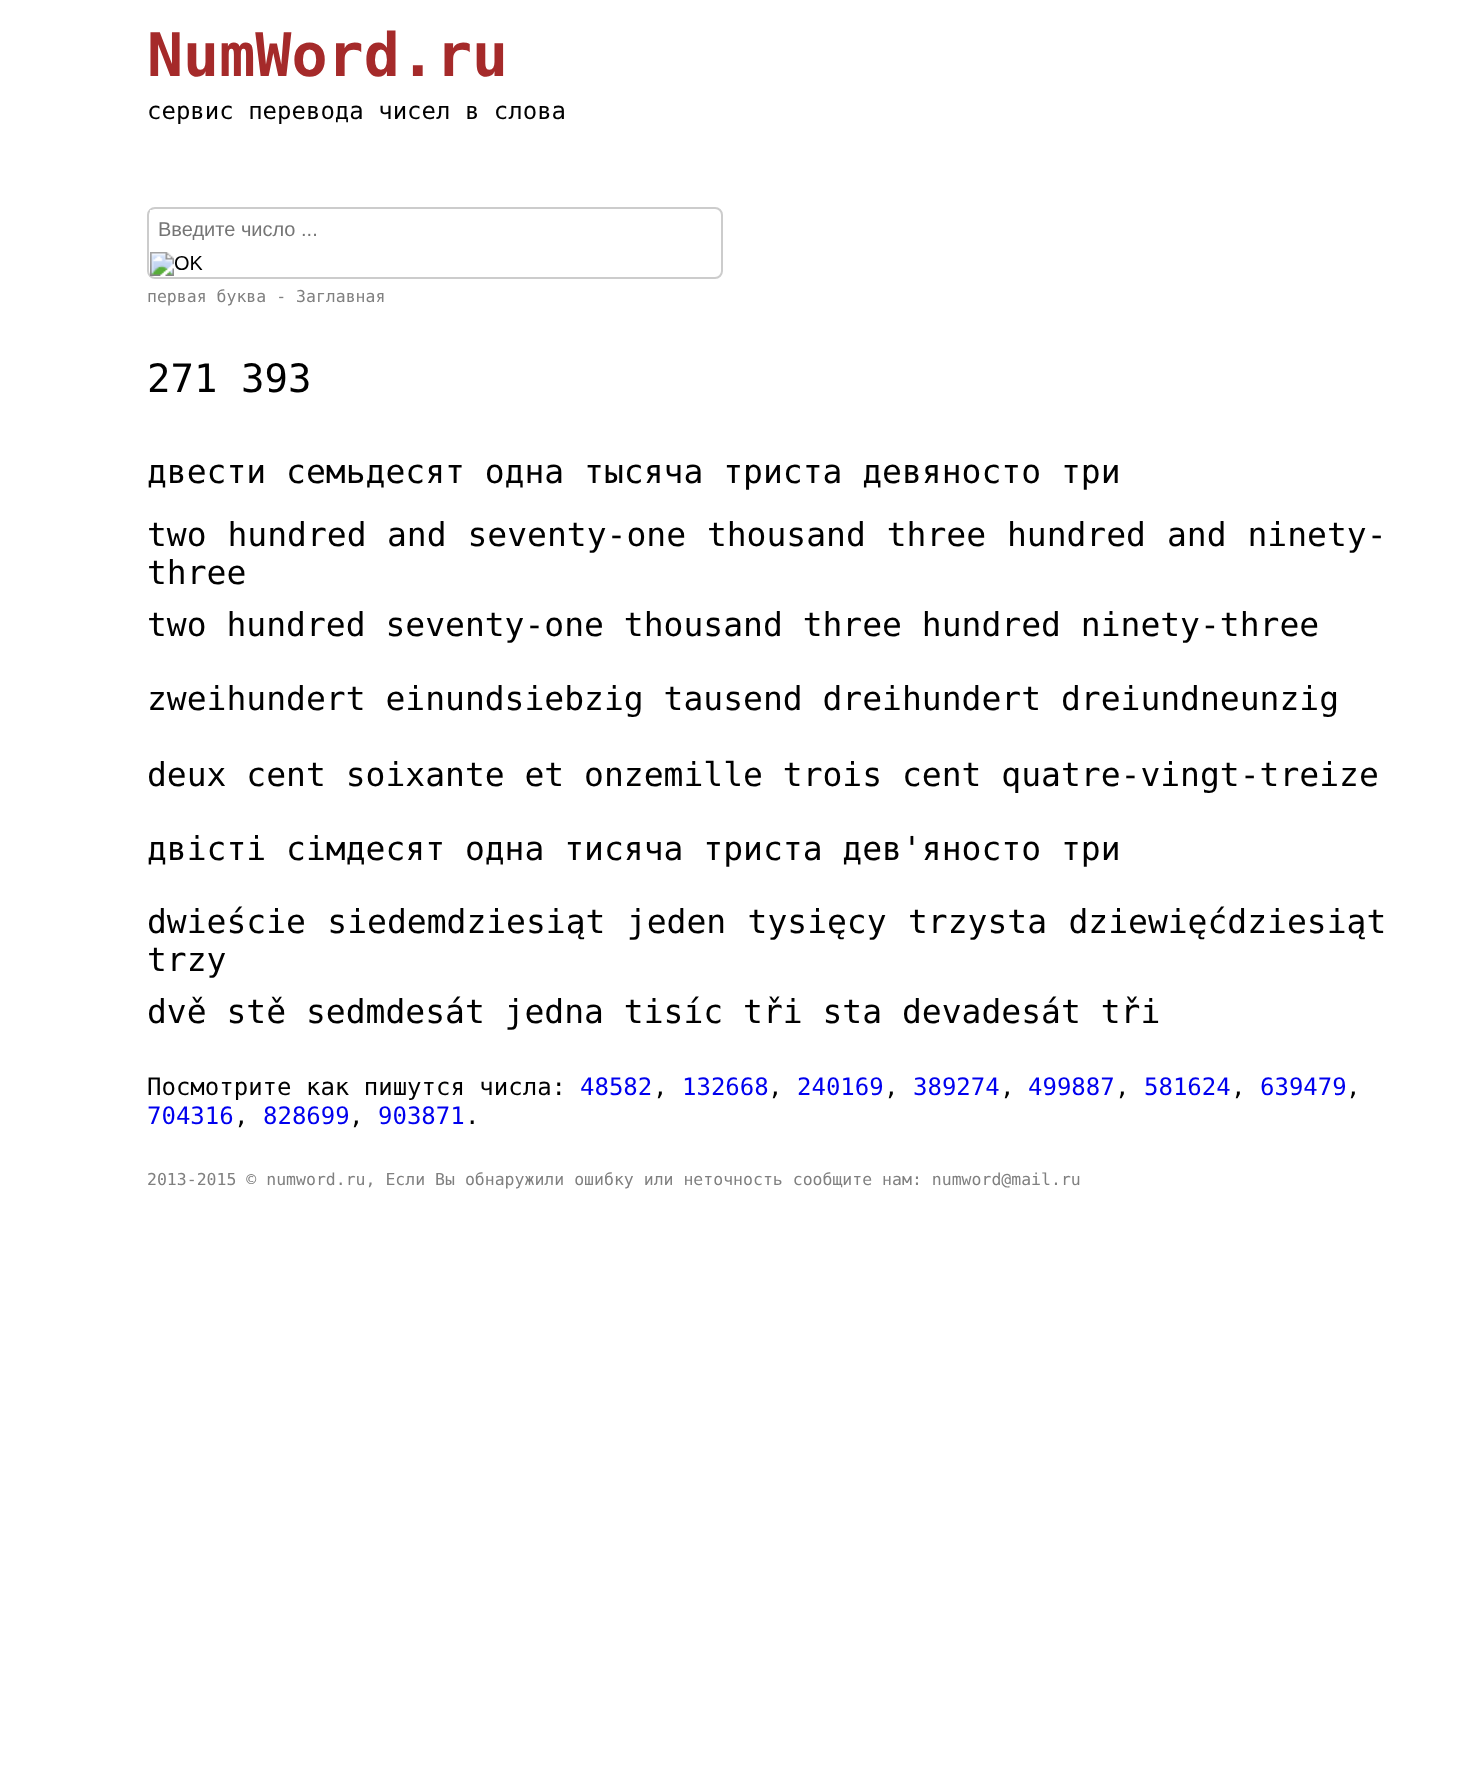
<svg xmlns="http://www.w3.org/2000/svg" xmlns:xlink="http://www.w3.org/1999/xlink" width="1482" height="1775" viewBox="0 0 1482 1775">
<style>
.cls-1{font:bold 60px DejaVu Sans Mono;fill:#a52a2a}
.cls-2{font:24px DejaVu Sans Mono;fill:#000000}
.cls-3{font:20px Liberation Sans;fill:#757575}
.cls-4{font:16.5px DejaVu Sans Mono;fill:#808080}
.cls-5{font:39px DejaVu Sans Mono;fill:#000000}
.cls-6{font:33px DejaVu Sans Mono;fill:#000000}
.cls-7{font:24px DejaVu Sans Mono;fill:#0000ee}
</style>
<rect width="100%" height="100%" fill="#ffffff"/>
<rect fill="none" stroke="#cccccc" stroke-width="2" x="148" y="208" width="574" height="70" rx="7"/>
<rect fill="#ffffff" x="150" y="210" width="2" height="2"/>
<image xlink:href="image0.png" x="150" y="252" width="53" height="24"/>
<text class="cls-1" x="147" y="76">NumWord.ru</text>
<text class="cls-2" x="147" y="119">сервис перевода чисел в слова</text>
<text class="cls-3" x="158" y="236">Введите число ...</text>
<text class="cls-4" x="147" y="302">первая буква - Заглавная</text>
<text class="cls-5" x="147" y="392">271 393</text>
<text class="cls-6"><tspan x="147" y="483">двести семьдесят одна тысяча триста девяносто три</tspan><tspan x="147" y="546" word-spacing="1">two hundred</tspan></text>
<text class="cls-6" x="387" y="546" word-spacing="1">and seventy-one thousand three hundred</text>
<text class="cls-6" x="1167" y="546" word-spacing="1">and ninety-</text>
<text class="cls-6"><tspan x="147" y="584">three</tspan><tspan x="147" y="636">two hundred seventy-one thousand three hundred ninety-three</tspan></text>
<text class="cls-6" x="147" y="710">zweihundert einundsiebzig tausend dreihundert dreiundneunzig</text>
<text class="cls-6" x="147" y="786">deux cent soixante et onzemille trois cent quatre-vingt-treize</text>
<text class="cls-6" x="147" y="860">двісті сімдесят одна тисяча триста дев'яносто три</text>
<text class="cls-6"><tspan x="147" y="933" word-spacing="1.5">dwieście siedemdziesiąt jeden tysięcy trzysta dziewięćdziesiąt</tspan><tspan x="147" y="971">trzy</tspan><tspan x="147" y="1023">dvě stě sedmdesát jedna tisíc tři sta devadesát tři</tspan></text>
<text class="cls-2" x="147" y="1095">Посмотрите как пишутся числа:</text>
<text class="cls-7" x="580" y="1095">48582</text>
<text class="cls-2" x="653" y="1095">,</text>
<text class="cls-7" x="682" y="1095">132668</text>
<text class="cls-2" x="768" y="1095">,</text>
<text class="cls-7" x="797" y="1095">240169</text>
<text class="cls-2" x="884" y="1095">,</text>
<text class="cls-7" x="913" y="1095">389274</text>
<text class="cls-2" x="1000" y="1095">,</text>
<text class="cls-7" x="1028" y="1095">499887</text>
<text class="cls-2" x="1115" y="1095">,</text>
<text class="cls-7" x="1144" y="1095">581624</text>
<text class="cls-2" x="1231" y="1095">,</text>
<text class="cls-7" x="1260" y="1095">639479</text>
<text class="cls-2" x="1346" y="1095">,</text>
<text class="cls-7" x="147" y="1124">704316</text>
<text class="cls-2" x="234" y="1124">,</text>
<text class="cls-7" x="263" y="1124">828699</text>
<text class="cls-2" x="349" y="1124">,</text>
<text class="cls-7" x="378" y="1124">903871</text>
<text class="cls-2" x="465" y="1124">.</text>
<text class="cls-4" x="147" y="1185">2013-2015 © numword.ru, Если Вы обнаружили ошибку или неточность сообщите нам: numword@mail.ru</text>
</svg>
